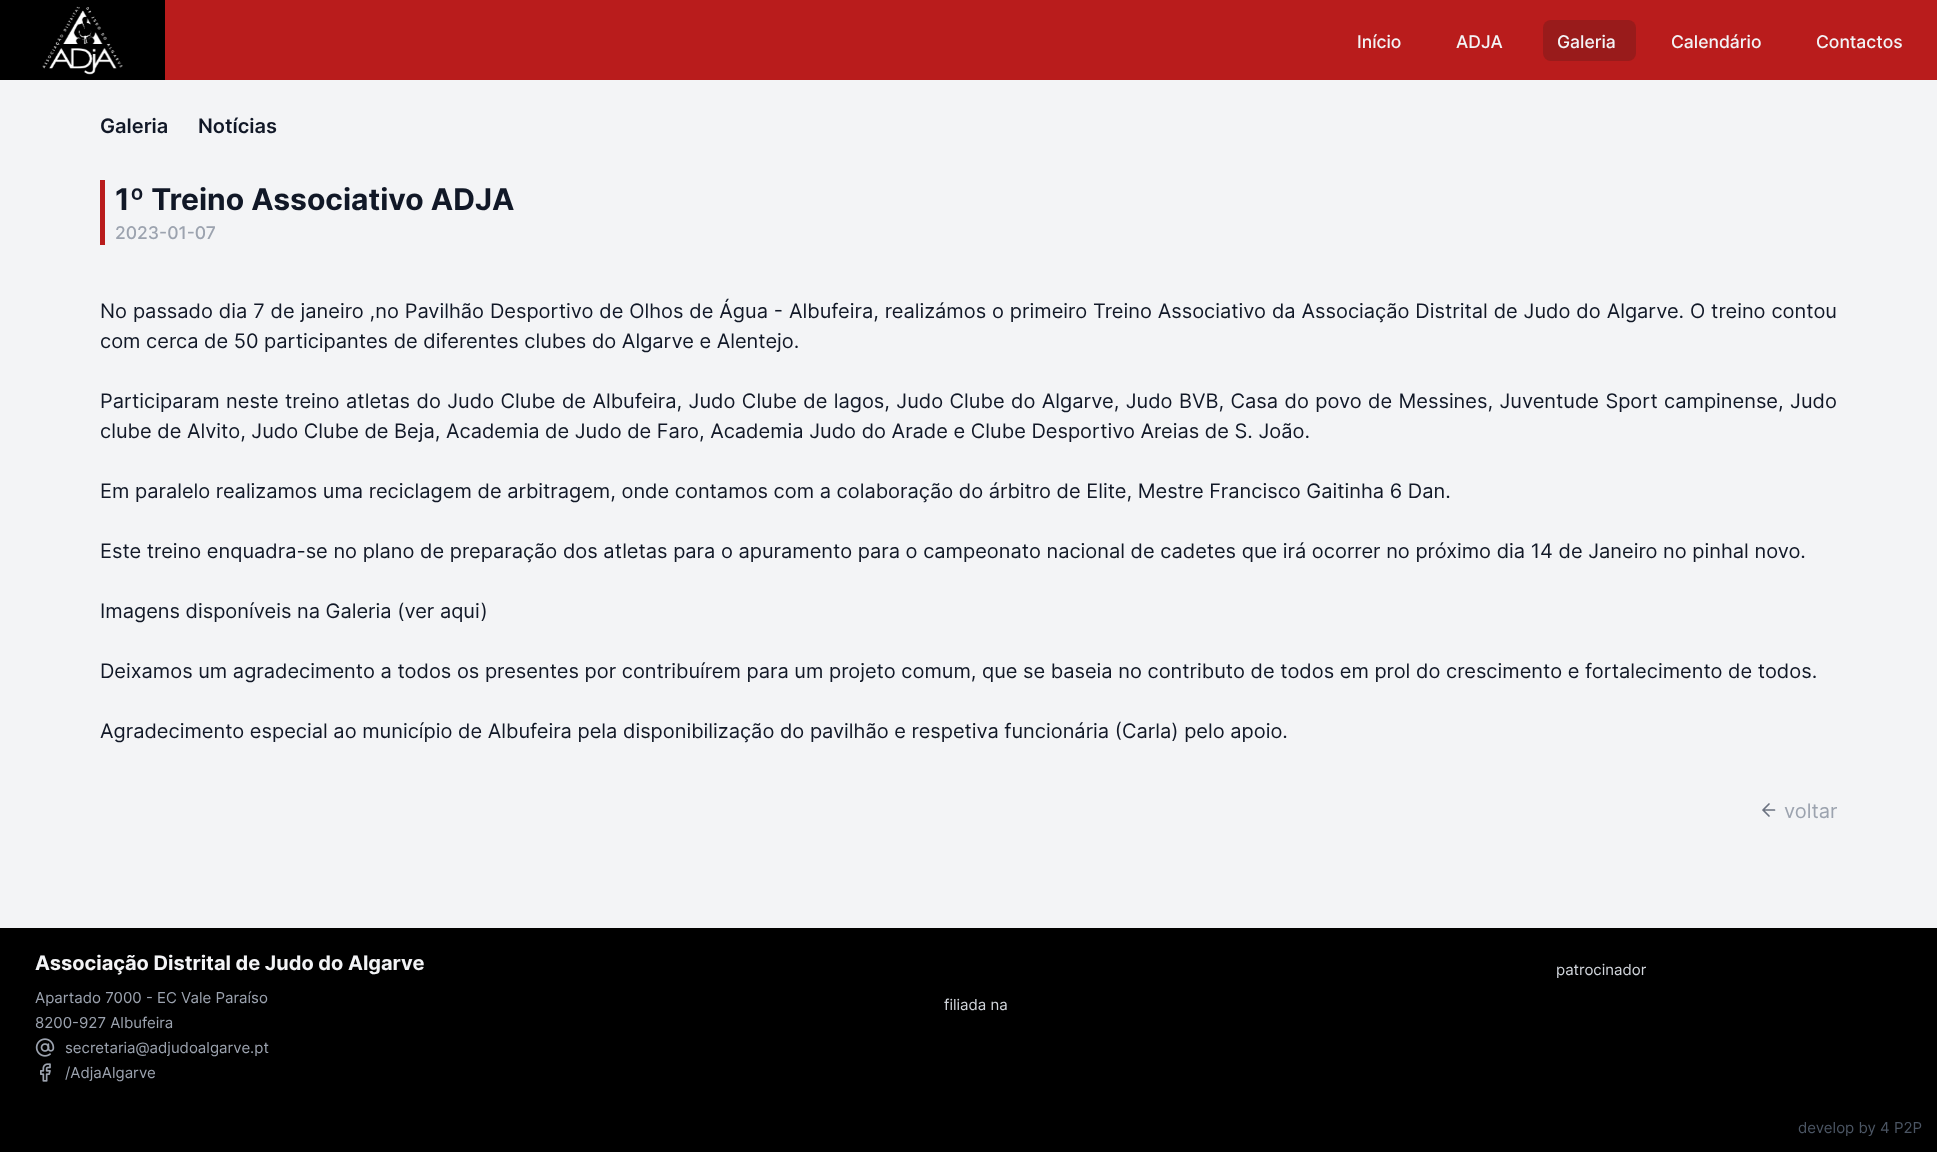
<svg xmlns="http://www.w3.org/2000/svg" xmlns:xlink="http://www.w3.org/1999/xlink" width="1937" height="1152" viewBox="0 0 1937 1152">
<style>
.cls-1{font:500 17.5px Inter;fill:#f3f4f6}
.cls-2{font:600 20px Inter;fill:#111827}
.cls-3{font:bold 30px Inter;fill:#111827}
.cls-4{font:500 17.5px Inter;fill:#9ca3af}
.cls-5{font:20px Inter;fill:#111827}
.cls-6{font:20px Inter;fill:#9ca3af}
.cls-7{font:bold 20px Inter;fill:#f3f4f6}
.cls-8{font:15px Inter;fill:#9ca3af}
.cls-9{font:15px Inter;fill:#d1d5db}
.cls-10{font:15px Inter;fill:#4b5563}
</style>
<rect width="100%" height="100%" fill="#f3f4f6"/>
<rect fill="#b91c1c" x="165" y="0" width="1772" height="80"/>
<rect fill="#000000" x="0" y="0" width="165" height="80"/>
<image xlink:href="image0.png" x="42" y="6" width="81" height="69"/>
<rect fill="#991b1b" x="1543" y="20" width="93" height="41" rx="8"/>
<rect fill="#b91c1c" x="100" y="180" width="5" height="65"/>
<path fill="none" stroke="#6b7280" stroke-width="1.7" stroke-linecap="round" stroke-linejoin="round" d="M1774.5 810H1763M1769 816L1763 810L1769 804"/>
<rect fill="#000000" x="0" y="928" width="1937" height="224"/>
<image xlink:href="image1.png" x="35" y="1038" width="20" height="19"/>
<image xlink:href="image2.png" x="40" y="1063" width="11" height="19"/>
<text class="cls-1" x="1357" y="48">Início</text>
<text class="cls-1" x="1456" y="48">ADJA</text>
<text class="cls-1" x="1557" y="48">Galeria</text>
<text class="cls-1" x="1671" y="48">Calendário</text>
<text class="cls-1" x="1816" y="48">Contactos</text>
<text class="cls-2" x="100" y="133">Galeria</text>
<text class="cls-2" x="198" y="133">Notícias</text>
<text class="cls-3" x="115" y="210">1º Treino Associativo ADJA</text>
<text class="cls-4" x="115" y="239">2023-01-07</text>
<text class="cls-5"><tspan x="100" y="318" word-spacing="0.3">No passado dia 7 de janeiro ,no Pavilhão Desportivo de Olhos de Água - Albufeira, realizámos o primeiro Treino Associativo da Associação Distrital de Judo do Algarve. O treino contou</tspan><tspan x="100" y="348">com cerca de 50 participantes de diferentes clubes do Algarve e Alentejo.</tspan></text>
<text class="cls-5"><tspan x="100" y="408" word-spacing="0.8">Participaram neste treino atletas do Judo Clube de Albufeira, Judo Clube de lagos, Judo Clube do Algarve, Judo BVB, Casa do povo de Messines, Juventude Sport campinense, Judo</tspan><tspan x="100" y="438">clube de Alvito, Judo Clube de Beja, Academia de Judo de Faro, Academia Judo do Arade e Clube Desportivo Areias de S. João.</tspan></text>
<text class="cls-5" x="100" y="498">Em paralelo realizamos uma reciclagem de arbitragem, onde contamos com a colaboração do árbitro de Elite, Mestre Francisco Gaitinha 6 Dan.</text>
<text class="cls-5" x="100" y="558">Este treino enquadra-se no plano de preparação dos atletas para o apuramento para o campeonato nacional de cadetes que irá ocorrer no próximo dia 14 de Janeiro no pinhal novo.</text>
<text class="cls-5" x="100" y="618">Imagens disponíveis na Galeria (ver aqui)</text>
<text class="cls-5" x="100" y="678">Deixamos um agradecimento a todos os presentes por contribuírem para um projeto comum, que se baseia no contributo de todos em prol do crescimento e fortalecimento de todos.</text>
<text class="cls-5" x="100" y="738">Agradecimento especial ao município de Albufeira pela disponibilização do pavilhão e respetiva funcionária (Carla) pelo apoio.</text>
<text class="cls-6" x="1784" y="818">voltar</text>
<text class="cls-7" x="35" y="970">Associação Distrital de Judo do Algarve</text>
<text class="cls-8"><tspan x="35" y="1003">Apartado 7000 - EC Vale Paraíso</tspan><tspan x="35" y="1028">8200-927 Albufeira</tspan></text>
<text class="cls-8"><tspan x="65" y="1053">secretaria@adjudoalgarve.pt</tspan><tspan x="65" y="1078">/AdjaAlgarve</tspan></text>
<text class="cls-9" x="1556" y="975">patrocinador</text>
<text class="cls-9" x="944" y="1010">filiada na</text>
<text class="cls-10" x="1798" y="1133">develop by 4 P2P</text>
</svg>
